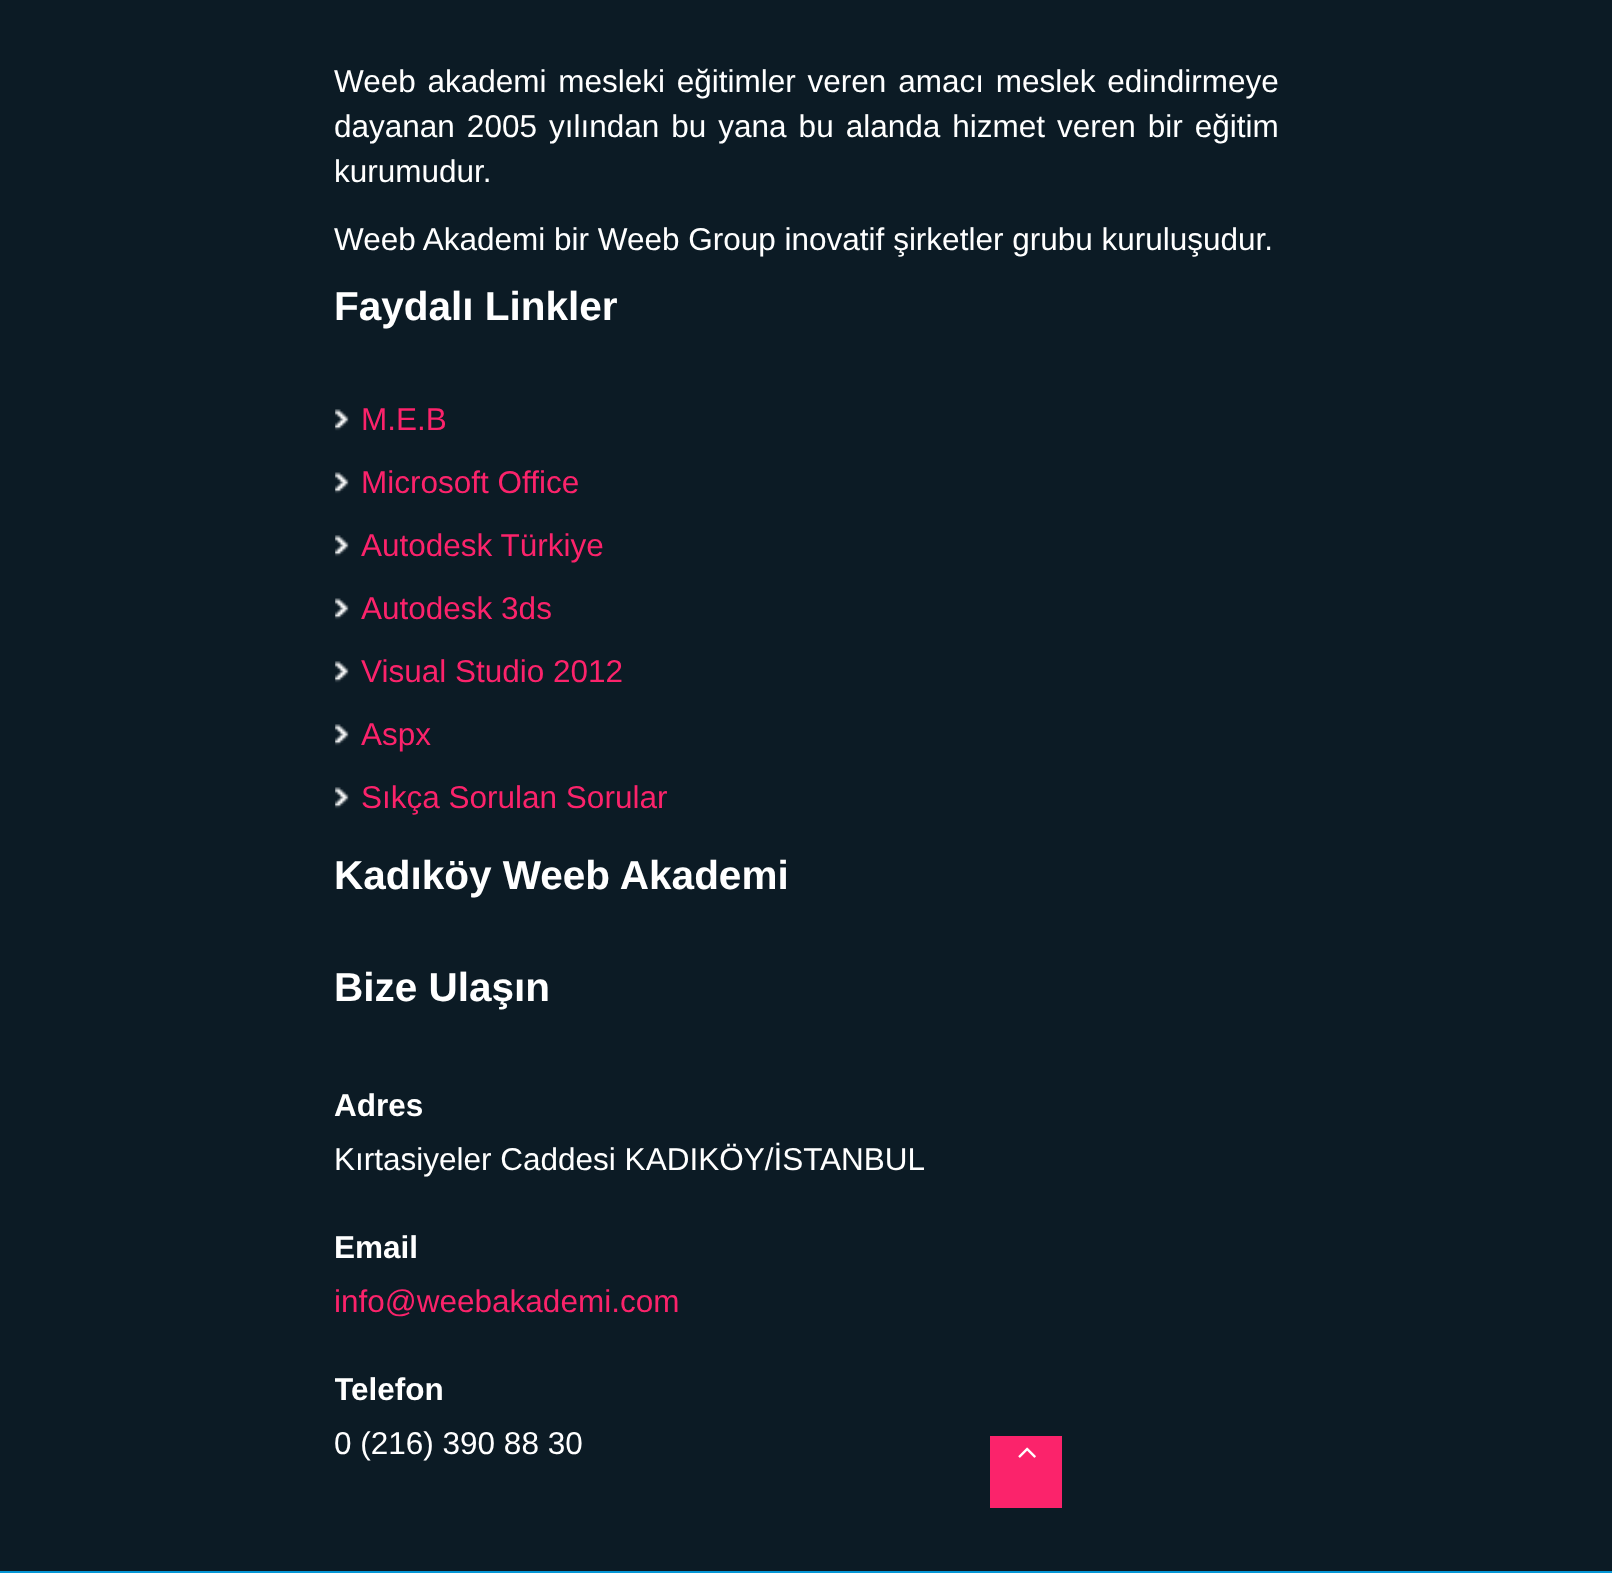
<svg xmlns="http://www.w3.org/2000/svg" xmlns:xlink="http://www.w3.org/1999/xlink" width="1612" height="1573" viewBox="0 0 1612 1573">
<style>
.cls-1{font:31.5px Liberation Sans;fill:#ffffff}
.cls-2{font:bold 40.5px Liberation Sans;fill:#ffffff}
.cls-3{font:31.5px Liberation Sans;fill:#fb236b}
.cls-4{font:bold 31.5px Liberation Sans;fill:#ffffff}
</style>
<defs>
<clipPath id="clip1"><rect x="335" y="1361" width="945" height="108"/></clipPath>
</defs>
<rect width="100%" height="100%" fill="#0c1b25"/>
<image xlink:href="image0.png" x="335" y="409" width="14" height="22"/>
<image xlink:href="image1.png" x="335" y="472" width="14" height="22"/>
<image xlink:href="image0.png" x="335" y="535" width="14" height="22"/>
<image xlink:href="image2.png" x="335" y="598" width="14" height="22"/>
<image xlink:href="image0.png" x="335" y="661" width="14" height="22"/>
<image xlink:href="image0.png" x="335" y="724" width="14" height="22"/>
<image xlink:href="image0.png" x="335" y="787" width="14" height="22"/>
<rect fill="#0596d5" x="0" y="1571" width="1612" height="2"/>
<rect fill="#fb236b" x="990" y="1436" width="72" height="72"/>
<image xlink:href="image3.png" x="1018" y="1447" width="18" height="11"/>
<text class="cls-1"><tspan x="334" y="92" word-spacing="3">Weeb akademi mesleki eğitimler veren amacı meslek edindirmeye</tspan><tspan x="334" y="137" word-spacing="3.25">dayanan 2005 yılından bu yana bu alanda hizmet veren bir eğitim</tspan><tspan x="334" y="182">kurumudur.</tspan></text>
<text class="cls-1" x="334" y="250">Weeb Akademi bir Weeb Group inovatif şirketler grubu kuruluşudur.</text>
<text class="cls-2" x="334" y="320">Faydalı Linkler</text>
<text class="cls-3" x="361" y="430">M.E.B</text>
<text class="cls-3" x="361" y="493">Microsoft Office</text>
<text class="cls-3" x="361" y="556">Autodesk Türkiye</text>
<text class="cls-3" x="361" y="619">Autodesk 3ds</text>
<text class="cls-3" x="361" y="682">Visual Studio 2012</text>
<text class="cls-3" x="361" y="745">Aspx</text>
<text class="cls-3" x="361" y="808">Sıkça Sorulan Sorular</text>
<text class="cls-2" x="334" y="889">Kadıköy Weeb Akademi</text>
<text class="cls-2" x="334" y="1001">Bize Ulaşın</text>
<text class="cls-4" x="334" y="1116">Adres</text>
<text class="cls-1" x="334" y="1170">Kırtasiyeler Caddesi KADIKÖY/İSTANBUL</text>
<text class="cls-4" x="334" y="1258">Email</text>
<text class="cls-3" x="334" y="1312">info@weebakademi.com</text>
<g clip-path="url(#clip1)">
<text class="cls-4" x="334" y="1400">Telefon</text>
</g>
<text class="cls-1" x="334" y="1454">0 (216) 390 88 30</text>
</svg>
